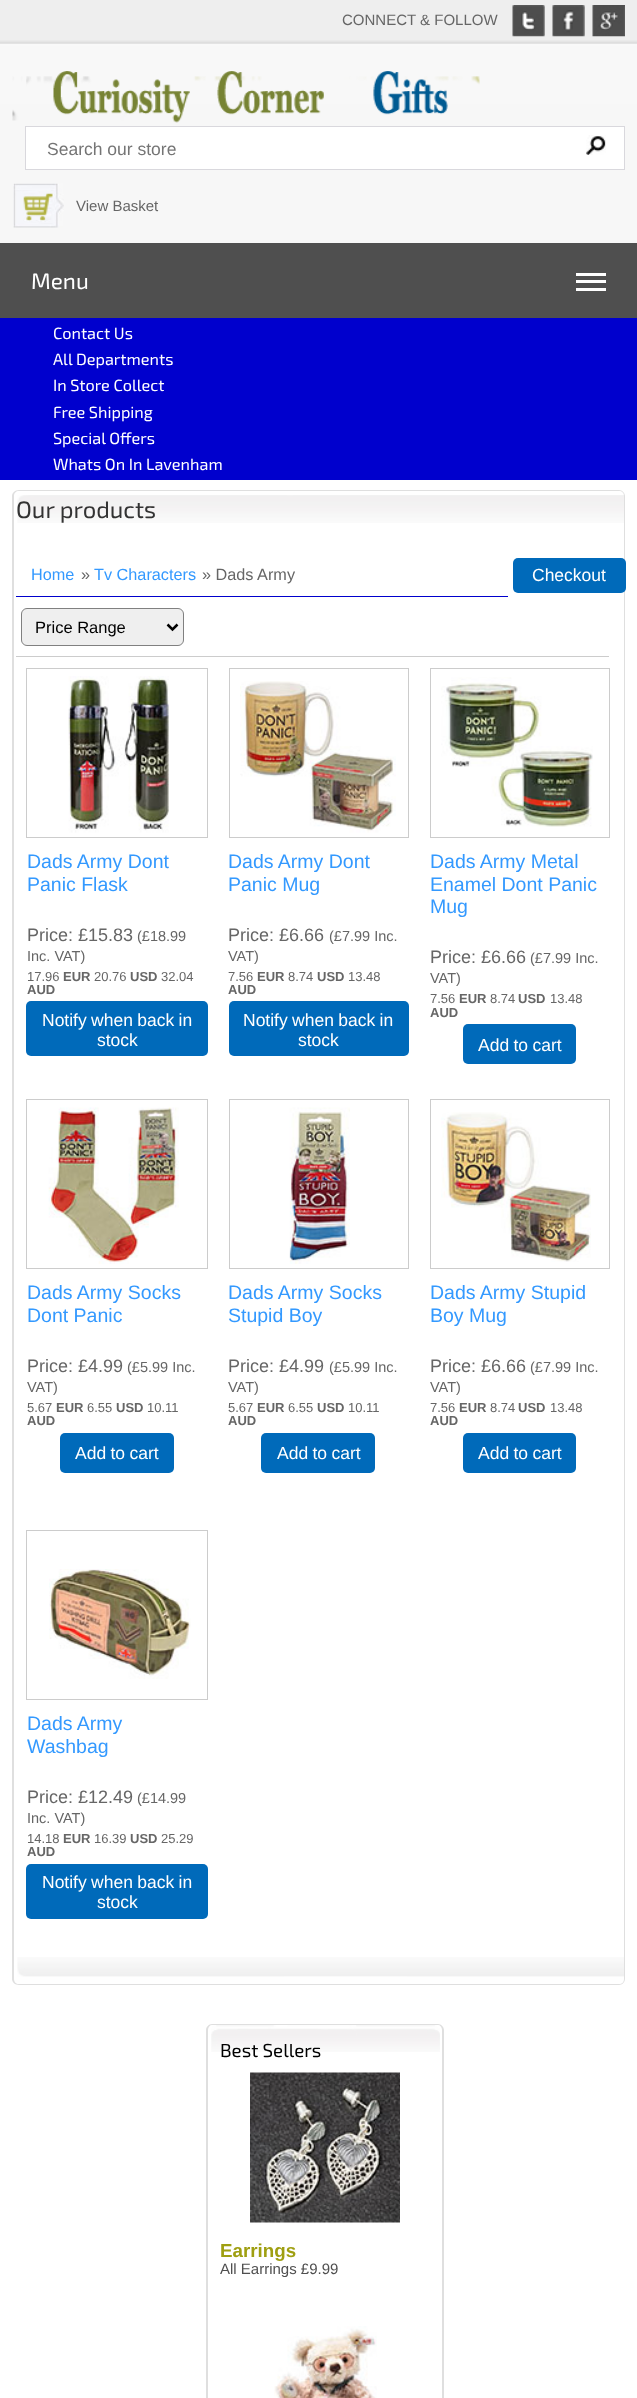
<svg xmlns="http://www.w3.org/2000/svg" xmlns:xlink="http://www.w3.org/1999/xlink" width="637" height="2398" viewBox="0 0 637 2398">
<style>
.cls-1{font:15px Liberation Sans;fill:#666666}
.cls-2{font:17.5px Liberation Sans;fill:#757575}
.cls-3{font:22.5px 'Exo 2';fill:#ffffff}
.cls-4{font:16.25px 'Exo 2';fill:#ffffff}
.cls-5{font:23.75px 'Exo 2';fill:#333333}
.cls-6{font:16.25px Liberation Sans;fill:#3399ff}
.cls-7{font:16.25px Liberation Sans;fill:#666666}
.cls-8{font:17.5px Liberation Sans;fill:#ffffff}
.cls-9{font:16.5px Liberation Sans;fill:#000000}
.cls-10{font:19.5px Liberation Sans;fill:#3399ff}
.cls-11{font:18px Liberation Sans;fill:#666666}
.cls-12{font:14.5px Liberation Sans;fill:#666666}
.cls-13{font:13px Liberation Sans;fill:#666666}
.cls-14{font:bold 13px Liberation Sans;fill:#666666}
.cls-15{font:18.75px 'Exo 2';fill:#000000}
.cls-16{font:bold 18.75px Liberation Sans;fill:#9f9f11}
.cls-17{font:15px Liberation Sans;fill:#4f4f4f}
</style>
<rect width="100%" height="100%" fill="#ffffff"/>
<image xlink:href="image0.png" x="0" y="0" width="637" height="243"/>
<image xlink:href="image1.png" x="512" y="5" width="33" height="32"/>
<image xlink:href="image2.png" x="552" y="5" width="33" height="32"/>
<image xlink:href="image3.png" x="592" y="5" width="33" height="32"/>
<image xlink:href="image4.png" x="12" y="71" width="468" height="52"/>
<rect fill="#ffffff" stroke="#d9d8dd" x="25.5" y="126.5" width="599" height="43"/>
<image xlink:href="image5.png" x="586" y="135" width="20" height="20"/>
<image xlink:href="image6.png" x="13" y="183" width="51" height="45"/>
<image xlink:href="image7.png" x="23" y="190" width="31" height="32"/>
<rect fill="#4f4f4f" x="0" y="243" width="637" height="75"/>
<rect fill="#ffffff" x="576" y="273" width="30" height="3"/>
<rect fill="#ffffff" x="576" y="280" width="30" height="3"/>
<rect fill="#ffffff" x="576" y="288" width="30" height="3"/>
<rect fill="#0000cd" x="0" y="318" width="637" height="162"/>
<image xlink:href="image8.png" x="17" y="495" width="608" height="28"/>
<path fill="#dfdfdf" fill-rule="evenodd" d="M19 490H619C622 490 625 493 625 496V1952H12V496C12 493 15 490 19 490ZM19 491H619C622 491 624 493 624 496V1952H14V496C14 493 16 491 19 491Z"/>
<rect fill="#0000cd" x="16" y="596" width="492" height="1"/>
<rect fill="#006aba" x="513" y="558" width="113" height="35" rx="5"/>
<rect fill="#cccccc" x="16" y="656" width="593" height="1"/>
<rect fill="#efefef" stroke="#808080" x="21.5" y="608.5" width="162" height="37" rx="5.5"/>
<path fill="none" stroke="#000000" stroke-width="2.5" d="M167.5 624.5L172.5 629.5L177.5 624.5"/>
<rect fill="none" stroke="#cccccc" x="26.5" y="668.5" width="181" height="169"/>
<image xlink:href="image9.png" x="68" y="676" width="101" height="157"/>
<rect fill="#006aba" x="26" y="1001" width="182" height="55" rx="5"/>
<rect fill="none" stroke="#cccccc" x="229.5" y="668.5" width="179" height="169"/>
<image xlink:href="image10.png" x="240" y="681" width="156" height="152"/>
<rect fill="#006aba" x="229" y="1001" width="180" height="55" rx="5"/>
<rect fill="none" stroke="#cccccc" x="430.5" y="668.5" width="179" height="169"/>
<image xlink:href="image11.png" x="441" y="677" width="152" height="150"/>
<rect fill="#006aba" x="463" y="1024" width="113" height="40" rx="5"/>
<rect fill="none" stroke="#cccccc" x="26.5" y="1099.5" width="181" height="169"/>
<image xlink:href="image12.png" x="48" y="1107" width="131" height="157"/>
<rect fill="#006aba" x="60" y="1433" width="114" height="40" rx="5"/>
<rect fill="none" stroke="#cccccc" x="229.5" y="1099.5" width="179" height="169"/>
<image xlink:href="image13.png" x="289" y="1107" width="61" height="157"/>
<rect fill="#006aba" x="261" y="1433" width="114" height="40" rx="5"/>
<rect fill="none" stroke="#cccccc" x="430.5" y="1099.5" width="179" height="169"/>
<image xlink:href="image14.png" x="441" y="1112" width="150" height="150"/>
<rect fill="#006aba" x="463" y="1433" width="113" height="40" rx="5"/>
<rect fill="none" stroke="#cccccc" x="26.5" y="1530.5" width="181" height="169"/>
<image xlink:href="image15.png" x="49" y="1569" width="142" height="110"/>
<rect fill="#006aba" x="26" y="1864" width="182" height="55" rx="5"/>
<image xlink:href="image16.png" x="17" y="1957" width="607" height="20"/>
<path fill="#dfdfdf" fill-rule="evenodd" d="M12 1952H625V1979C625 1982 622 1985 619 1985H19C15 1985 12 1982 12 1979ZM14 1952H624V1979C624 1982 622 1984 619 1984H19C16 1984 14 1982 14 1979Z"/>
<image xlink:href="image17.png" x="211" y="2025" width="229" height="27"/>
<path fill="#dfdfdf" fill-rule="evenodd" d="M212 2024H438C441 2024 444 2027 444 2030V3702H206V2030C206 2027 209 2024 212 2024ZM212 2025H438C440 2025 442 2027 442 2030V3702H208V2030C208 2027 210 2025 212 2025Z"/>
<image xlink:href="image18.png" x="250" y="2072" width="150" height="151"/>
<image xlink:href="image19.png" x="274" y="2326" width="103" height="72"/>
<text class="cls-1" x="342" y="25">CONNECT &amp; FOLLOW</text>
<text class="cls-2" x="47" y="155">Search our store</text>
<text class="cls-1" x="76" y="211">View Basket</text>
<text class="cls-3" x="31" y="289">Menu</text>
<text class="cls-4"><tspan x="53" y="339">Contact Us</tspan><tspan x="53" y="365">All Departments</tspan><tspan x="53" y="391">In Store Collect</tspan><tspan x="53" y="418">Free Shipping</tspan><tspan x="53" y="444">Special Offers</tspan><tspan x="53" y="470">Whats On In Lavenham</tspan></text>
<text class="cls-5" x="16" y="518">Our products</text>
<text class="cls-6" x="31" y="580">Home</text>
<text class="cls-7" x="81" y="580">»</text>
<text class="cls-6" x="94" y="580">Tv Characters</text>
<text class="cls-7" x="202" y="580">» Dads Army</text>
<text class="cls-8" x="532" y="581">Checkout</text>
<text class="cls-9" x="35" y="633">Price Range</text>
<text class="cls-10"><tspan x="27" y="868">Dads Army Dont</tspan><tspan x="27" y="891">Panic Flask</tspan></text>
<text class="cls-11" x="27" y="941">Price: £15.83</text>
<text class="cls-12" x="137" y="941">(£18.99</text>
<text class="cls-12" x="27" y="961">Inc. VAT)</text>
<text class="cls-13" x="27" y="981">17.96</text>
<text class="cls-14" x="63" y="981">EUR</text>
<text class="cls-13" x="94" y="981">20.76</text>
<text class="cls-14" x="130" y="981">USD</text>
<text class="cls-13" x="161" y="981">32.04</text>
<text class="cls-14" x="27" y="994">AUD</text>
<text class="cls-8" x="42" y="1026" word-spacing="-0.5">Notify when back in</text>
<text class="cls-8" x="97" y="1046">stock</text>
<text class="cls-10"><tspan x="228" y="868">Dads Army Dont</tspan><tspan x="228" y="891">Panic Mug</tspan></text>
<text class="cls-11" x="228" y="941">Price: £6.66</text>
<text class="cls-12" x="329" y="941">(£7.99 Inc.</text>
<text class="cls-12" x="228" y="961">VAT)</text>
<text class="cls-13" x="228" y="981">7.56</text>
<text class="cls-14" x="257" y="981">EUR</text>
<text class="cls-13" x="288" y="981">8.74</text>
<text class="cls-14" x="317" y="981">USD</text>
<text class="cls-13" x="348" y="981">13.48</text>
<text class="cls-14" x="228" y="994">AUD</text>
<text class="cls-8" x="243" y="1026" word-spacing="-0.5">Notify when back in</text>
<text class="cls-8" x="298" y="1046">stock</text>
<text class="cls-10"><tspan x="430" y="868">Dads Army Metal</tspan><tspan x="430" y="891">Enamel Dont Panic</tspan><tspan x="430" y="913">Mug</tspan></text>
<text class="cls-11" x="430" y="963">Price: £6.66</text>
<text class="cls-12" x="530" y="963">(£7.99 Inc.</text>
<text class="cls-12" x="430" y="983">VAT)</text>
<text class="cls-13" x="430" y="1003">7.56</text>
<text class="cls-14" x="459" y="1003">EUR</text>
<text class="cls-13" x="490" y="1003">8.74</text>
<text class="cls-14" x="518" y="1003">USD</text>
<text class="cls-13" x="550" y="1003">13.48</text>
<text class="cls-14" x="430" y="1017">AUD</text>
<text class="cls-8" x="478" y="1051" word-spacing="-0.5">Add to cart</text>
<text class="cls-10"><tspan x="27" y="1299">Dads Army Socks</tspan><tspan x="27" y="1322">Dont Panic</tspan></text>
<text class="cls-11" x="27" y="1372">Price: £4.99</text>
<text class="cls-12" x="127" y="1372">(£5.99 Inc.</text>
<text class="cls-12" x="27" y="1392">VAT)</text>
<text class="cls-13" x="27" y="1412">5.67</text>
<text class="cls-14" x="56" y="1412">EUR</text>
<text class="cls-13" x="87" y="1412">6.55</text>
<text class="cls-14" x="116" y="1412">USD</text>
<text class="cls-13" x="147" y="1412">10.11</text>
<text class="cls-14" x="27" y="1425">AUD</text>
<text class="cls-8" x="75" y="1459" word-spacing="-0.5">Add to cart</text>
<text class="cls-10"><tspan x="228" y="1299">Dads Army Socks</tspan><tspan x="228" y="1322">Stupid Boy</tspan></text>
<text class="cls-11" x="228" y="1372">Price: £4.99</text>
<text class="cls-12" x="329" y="1372">(£5.99 Inc.</text>
<text class="cls-12" x="228" y="1392">VAT)</text>
<text class="cls-13" x="228" y="1412">5.67</text>
<text class="cls-14" x="257" y="1412">EUR</text>
<text class="cls-13" x="288" y="1412">6.55</text>
<text class="cls-14" x="317" y="1412">USD</text>
<text class="cls-13" x="348" y="1412">10.11</text>
<text class="cls-14" x="228" y="1425">AUD</text>
<text class="cls-8" x="277" y="1459" word-spacing="-0.5">Add to cart</text>
<text class="cls-10"><tspan x="430" y="1299">Dads Army Stupid</tspan><tspan x="430" y="1322">Boy Mug</tspan></text>
<text class="cls-11" x="430" y="1372">Price: £6.66</text>
<text class="cls-12" x="530" y="1372">(£7.99 Inc.</text>
<text class="cls-12" x="430" y="1392">VAT)</text>
<text class="cls-13" x="430" y="1412">7.56</text>
<text class="cls-14" x="459" y="1412">EUR</text>
<text class="cls-13" x="490" y="1412">8.74</text>
<text class="cls-14" x="518" y="1412">USD</text>
<text class="cls-13" x="550" y="1412">13.48</text>
<text class="cls-14" x="430" y="1425">AUD</text>
<text class="cls-8" x="478" y="1459" word-spacing="-0.5">Add to cart</text>
<text class="cls-10"><tspan x="27" y="1730">Dads Army</tspan><tspan x="27" y="1753">Washbag</tspan></text>
<text class="cls-11" x="27" y="1803">Price: £12.49</text>
<text class="cls-12" x="137" y="1803">(£14.99</text>
<text class="cls-12" x="27" y="1823">Inc. VAT)</text>
<text class="cls-13" x="27" y="1843">14.18</text>
<text class="cls-14" x="63" y="1843">EUR</text>
<text class="cls-13" x="94" y="1843">16.39</text>
<text class="cls-14" x="130" y="1843">USD</text>
<text class="cls-13" x="161" y="1843">25.29</text>
<text class="cls-14" x="27" y="1856">AUD</text>
<text class="cls-8" x="42" y="1888" word-spacing="-0.5">Notify when back in</text>
<text class="cls-8" x="97" y="1908">stock</text>
<text class="cls-15" x="220" y="2057">Best Sellers</text>
<text class="cls-16" x="220" y="2257">Earrings</text>
<text class="cls-17" x="220" y="2274">All Earrings £9.99</text>
</svg>
